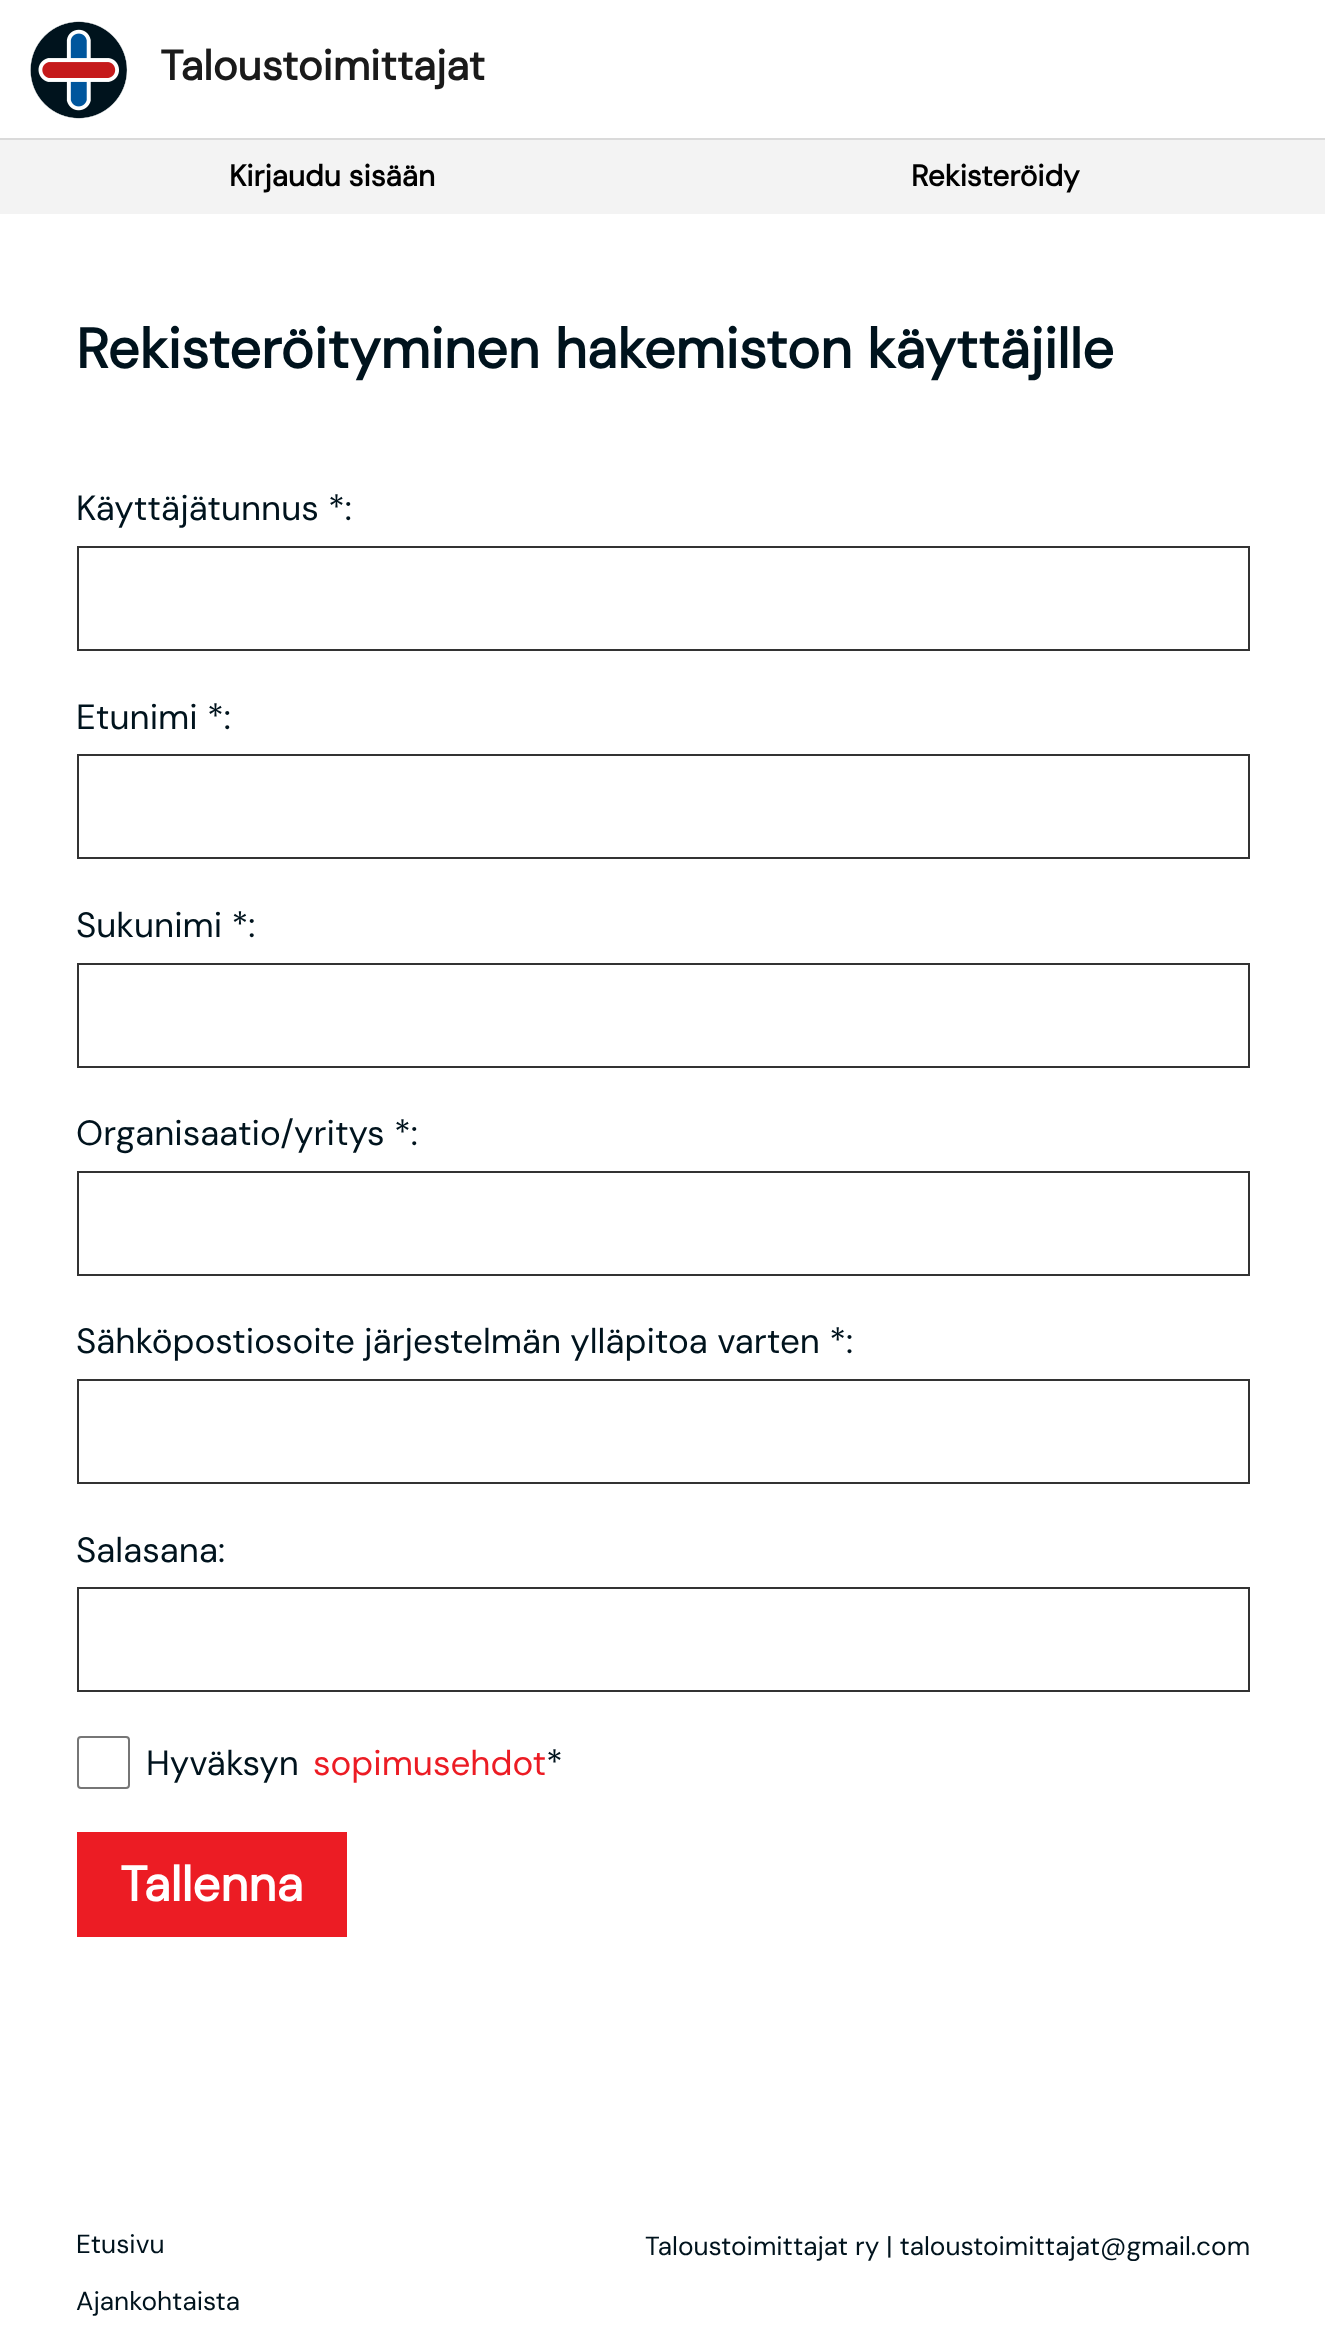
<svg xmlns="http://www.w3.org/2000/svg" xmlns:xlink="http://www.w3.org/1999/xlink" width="1325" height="2338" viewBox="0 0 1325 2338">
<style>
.cls-1{font:bold 42px DM Sans;fill:#1a1a1a}
.cls-2{font:bold 29.75px DM Sans;fill:#000000}
.cls-3{font:bold 56px DM Sans;fill:#00131d}
.cls-4{font:35px DM Sans;fill:#00131d}
.cls-5{font:35px DM Sans;fill:#ec1c24}
.cls-6{font:bold 49px DM Sans;fill:#ffffff}
.cls-7{font:26.25px DM Sans;fill:#00131d}
</style>
<rect width="100%" height="100%" fill="#ffffff"/>
<rect fill="#dadada" x="0" y="138" width="1325" height="2"/>
<image xlink:href="image0.png" x="30" y="21" width="98" height="98"/>
<rect fill="#f3f3f3" x="0" y="140" width="1325" height="74"/>
<rect fill="none" stroke="#333333" stroke-width="2" x="78" y="547" width="1171" height="103"/>
<rect fill="none" stroke="#333333" stroke-width="2" x="78" y="755" width="1171" height="103"/>
<rect fill="none" stroke="#333333" stroke-width="2" x="78" y="964" width="1171" height="103"/>
<rect fill="none" stroke="#333333" stroke-width="2" x="78" y="1172" width="1171" height="103"/>
<rect fill="none" stroke="#333333" stroke-width="2" x="78" y="1380" width="1171" height="103"/>
<rect fill="none" stroke="#333333" stroke-width="2" x="78" y="1588" width="1171" height="103"/>
<rect fill="none" stroke="#767676" stroke-width="2" x="78" y="1737" width="51" height="51" rx="3"/>
<rect fill="#ec1c24" x="77" y="1832" width="270" height="105"/>
<text class="cls-1" x="160" y="80">Taloustoimittajat</text>
<text class="cls-2" x="229" y="186">Kirjaudu sisään</text>
<text class="cls-2" x="911" y="186">Rekisteröidy</text>
<text class="cls-3" x="76" y="368">Rekisteröityminen hakemiston käyttäjille</text>
<text class="cls-4" x="76" y="520">Käyttäjätunnus *:</text>
<text class="cls-4" x="76" y="729">Etunimi *:</text>
<text class="cls-4" x="76" y="937">Sukunimi *:</text>
<text class="cls-4" x="76" y="1145">Organisaatio/yritys *:</text>
<text class="cls-4" x="76" y="1353">Sähköpostiosoite järjestelmän ylläpitoa varten *:</text>
<text class="cls-4" x="76" y="1562">Salasana:</text>
<text class="cls-4" x="146" y="1775">Hyväksyn</text>
<text class="cls-5" x="313" y="1775">sopimusehdot</text>
<text class="cls-4" x="546" y="1775">*</text>
<text class="cls-6" x="120" y="1901">Tallenna</text>
<text class="cls-7" x="76" y="2253">Etusivu</text>
<text class="cls-7" x="76" y="2310">Ajankohtaista</text>
<text class="cls-7" x="645" y="2255">Taloustoimittajat ry | taloustoimittajat@gmail.com</text>
</svg>
